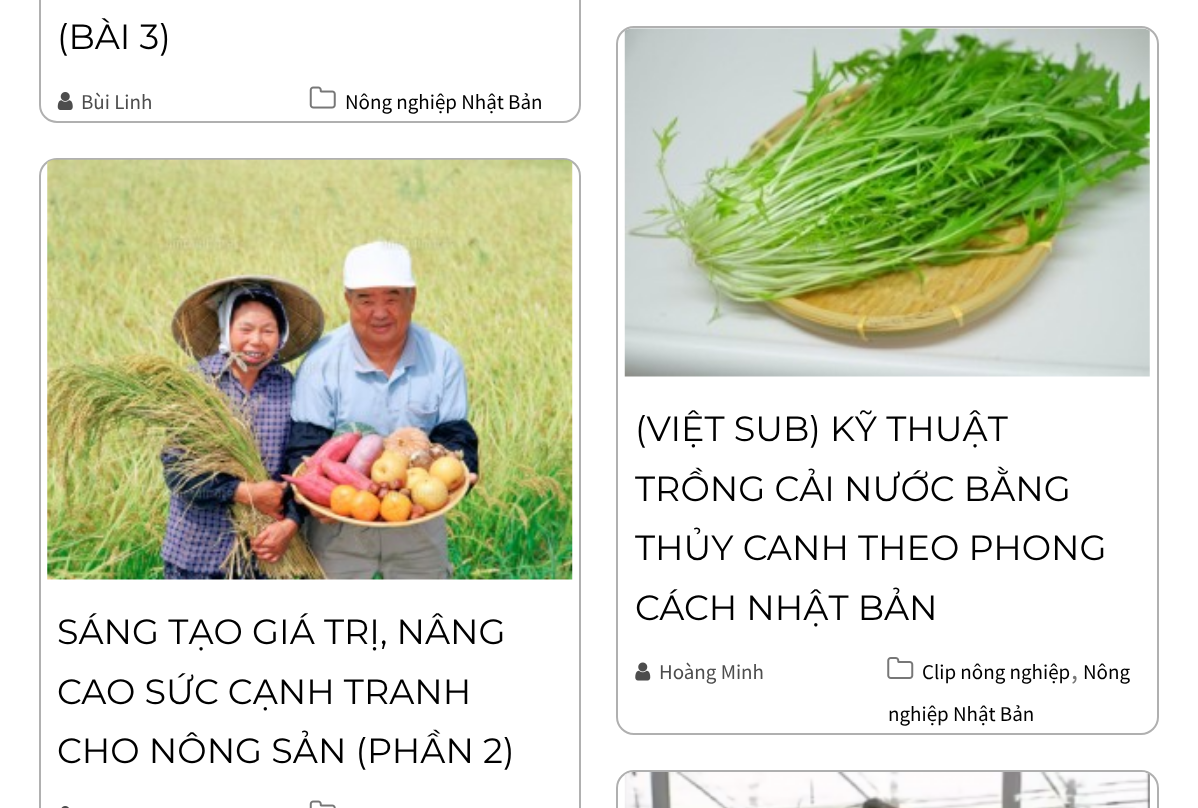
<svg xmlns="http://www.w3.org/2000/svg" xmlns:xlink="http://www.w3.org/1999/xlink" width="1198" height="808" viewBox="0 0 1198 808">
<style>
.cls-1{font:35px Montserrat;fill:#000000}
.cls-2{font:21px Source Sans Pro;fill:#4d4d4d}
.cls-3{font:21px Source Sans Pro;fill:#000000}
.cls-4{font:28px Source Sans Pro;fill:#777777}
</style>
<rect width="100%" height="100%" fill="#ffffff"/>
<rect fill="none" stroke="#b0b0b0" stroke-width="2" x="40" y="-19" width="540" height="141" rx="17"/>
<image xlink:href="image0.png" x="57" y="92" width="16" height="18"/>
<image xlink:href="image1.png" x="309" y="86" width="27" height="23"/>
<rect fill="none" stroke="#b0b0b0" stroke-width="2" x="40" y="159" width="540" height="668" rx="17"/>
<image xlink:href="image2.png" x="47" y="159" width="526" height="421"/>
<image xlink:href="image3.png" x="61" y="806" width="8" height="2"/>
<image xlink:href="image4.png" x="309" y="800" width="27" height="8"/>
<rect fill="none" stroke="#b0b0b0" stroke-width="2" x="617" y="27" width="541" height="707" rx="17"/>
<image xlink:href="image5.png" x="624" y="28" width="526" height="349"/>
<image xlink:href="image6.png" x="635" y="662" width="16" height="19"/>
<image xlink:href="image7.png" x="887" y="657" width="27" height="22"/>
<rect fill="none" stroke="#b0b0b0" stroke-width="2" x="617" y="771" width="541" height="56" rx="17"/>
<image xlink:href="image8.png" x="624" y="772" width="526" height="36"/>
<text class="cls-1" x="57" y="49">(BÀI 3)</text>
<text class="cls-2" x="81" y="109">Bùi Linh</text>
<text class="cls-3" x="345" y="109">Nông nghiệp Nhật Bản</text>
<text class="cls-1"><tspan x="57" y="644">SÁNG TẠO GIÁ TRỊ, NÂNG</tspan><tspan x="57" y="704">CAO SỨC CẠNH TRANH</tspan><tspan x="57" y="763">CHO NÔNG SẢN (PHẦN 2)</tspan></text>
<text class="cls-1"><tspan x="635" y="441">(VIỆT SUB) KỸ THUẬT</tspan><tspan x="635" y="501">TRỒNG CẢI NƯỚC BẰNG</tspan><tspan x="635" y="560">THỦY CANH THEO PHONG</tspan><tspan x="635" y="620">CÁCH NHẬT BẢN</tspan></text>
<text class="cls-2" x="659" y="679">Hoàng Minh</text>
<text class="cls-3" x="922" y="679">Clip nông nghiệp</text>
<text class="cls-4" x="1071" y="679">,</text>
<text class="cls-3" x="1083" y="679">Nông</text>
<text class="cls-3" x="888" y="721">nghiệp Nhật Bản</text>
</svg>
